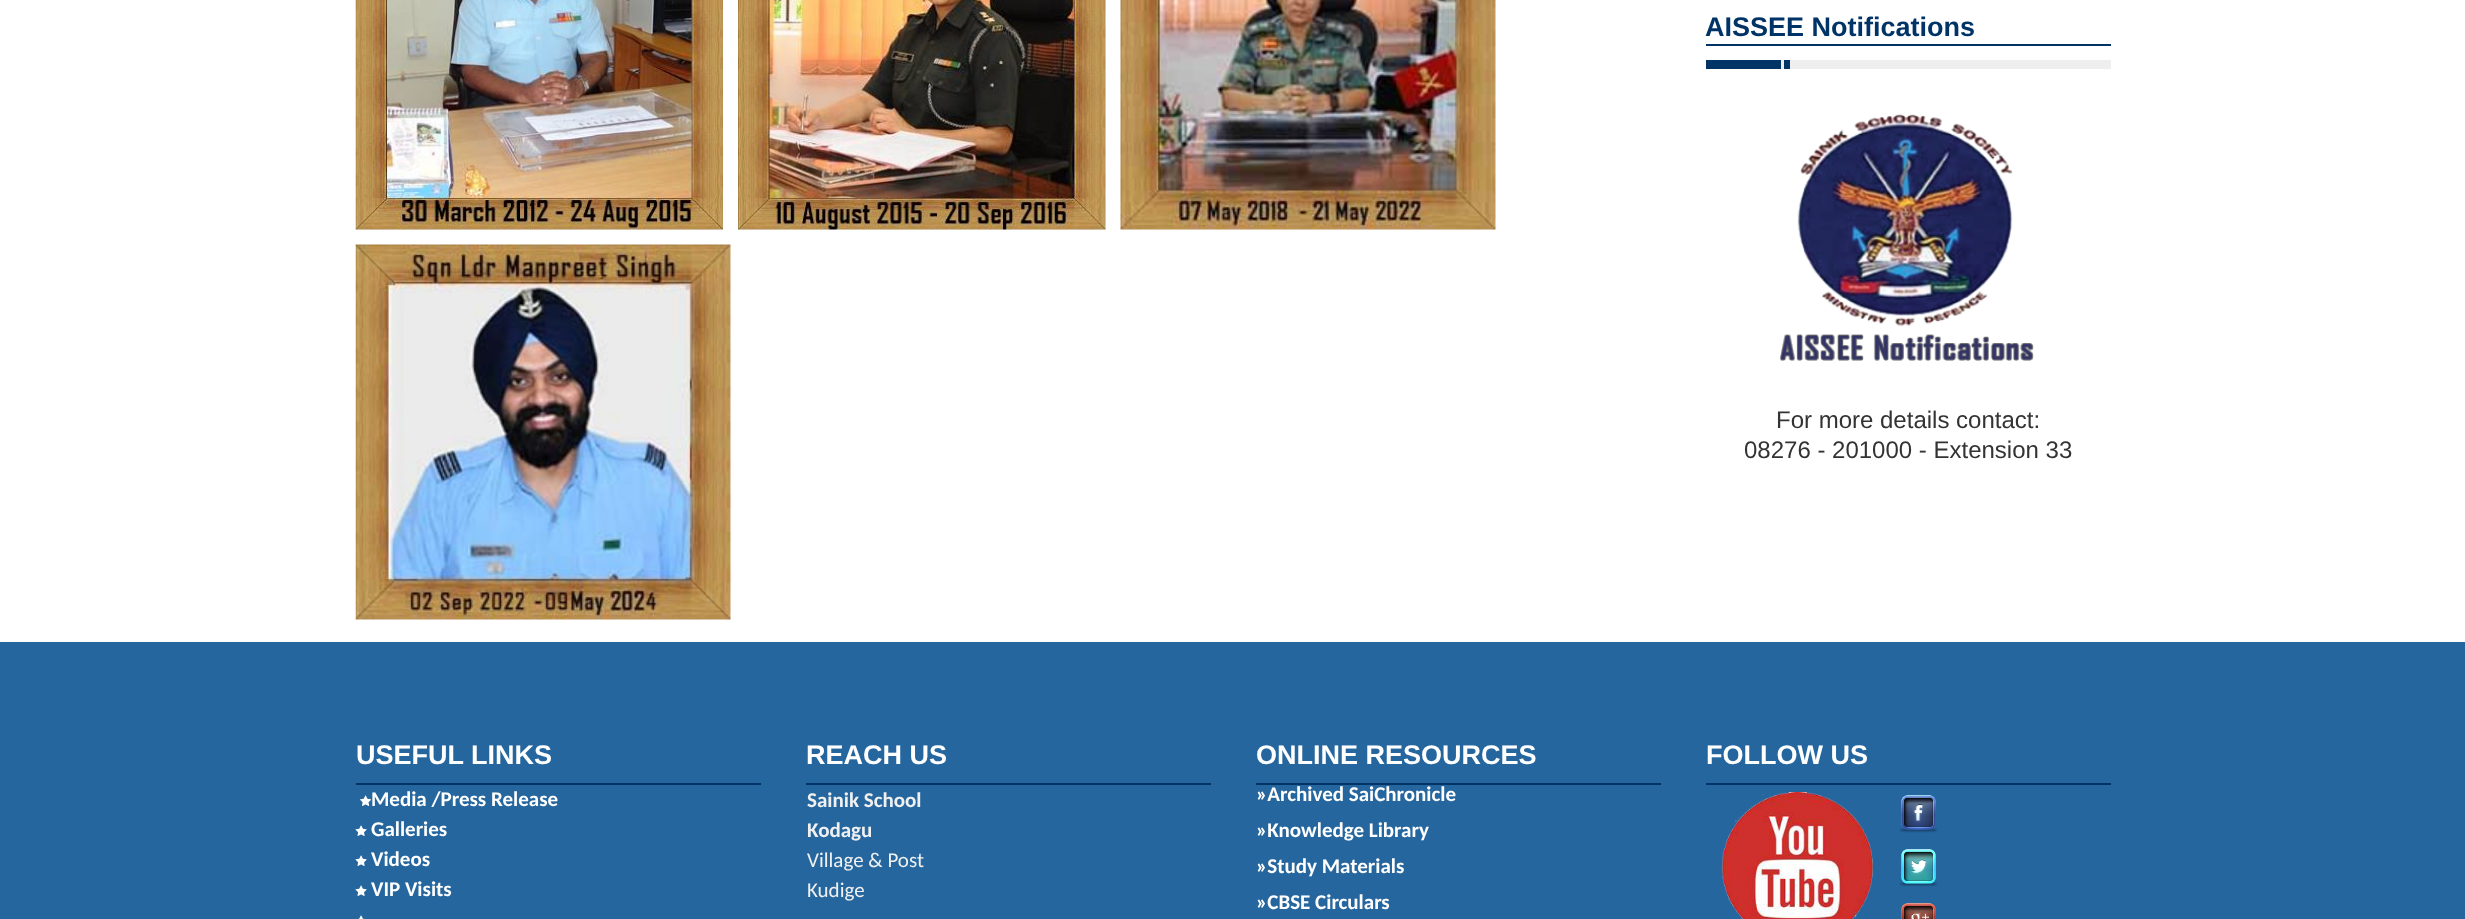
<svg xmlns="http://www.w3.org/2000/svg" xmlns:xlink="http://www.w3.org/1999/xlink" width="2465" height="919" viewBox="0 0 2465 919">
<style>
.cls-1{font:bold 27px Liberation Sans;fill:#003366}
.cls-2{font:24px Liberation Sans;fill:#333333}
.cls-3{font:bold 27px Liberation Sans;fill:#ffffff}
.cls-4{font:bold 21px Carlito;fill:#ffffff}
.cls-5{font:bold 21px Carlito;fill:#f0f0f0}
.cls-6{font:21px Carlito;fill:#f0f0f0}
</style>
<rect width="100%" height="100%" fill="#ffffff"/>
<image xlink:href="image0.png" x="355" y="0" width="368" height="230"/>
<image xlink:href="image1.png" x="738" y="0" width="368" height="230"/>
<image xlink:href="image2.png" x="1120" y="0" width="376" height="230"/>
<image xlink:href="image3.png" x="355" y="244" width="376" height="376"/>
<rect fill="#003366" x="1706" y="44" width="405" height="2"/>
<rect fill="#eeeeee" x="1781" y="60" width="330" height="9"/>
<rect fill="#003366" x="1706" y="60" width="75" height="9"/>
<rect fill="#003366" x="1784" y="60" width="6" height="9"/>
<image xlink:href="image4.png" x="1780" y="113" width="254" height="248"/>
<rect fill="#25669e" x="0" y="642" width="2465" height="277"/>
<rect fill="#003366" x="356" y="783" width="405" height="2"/>
<image xlink:href="image5.png" x="360" y="795" width="12" height="11"/>
<image xlink:href="image6.png" x="355" y="825" width="12" height="11"/>
<image xlink:href="image6.png" x="355" y="855" width="12" height="11"/>
<image xlink:href="image6.png" x="355" y="885" width="12" height="11"/>
<image xlink:href="image7.png" x="358" y="915" width="7" height="4"/>
<rect fill="#003366" x="806" y="783" width="405" height="2"/>
<rect fill="#003366" x="1256" y="783" width="405" height="2"/>
<rect fill="#003366" x="1706" y="783" width="405" height="2"/>
<image xlink:href="image8.png" x="1721" y="792" width="153" height="127"/>
<image xlink:href="image9.png" x="1899" y="795" width="39" height="38"/>
<image xlink:href="image10.png" x="1899" y="849" width="39" height="38"/>
<image xlink:href="image11.png" x="1901" y="903" width="35" height="16"/>
<text class="cls-1" x="1705" y="36">AISSEE Notifications</text>
<text class="cls-2" x="1776" y="428">For more details contact:</text>
<text class="cls-2" x="1744" y="458">08276 - 201000 - Extension 33</text>
<text class="cls-3" x="356" y="764">USEFUL LINKS</text>
<text class="cls-4"><tspan x="371" y="806">Media /Press Release</tspan><tspan x="371" y="836">Galleries</tspan><tspan x="371" y="866">Videos</tspan><tspan x="371" y="896">VIP Visits</tspan></text>
<text class="cls-3" x="806" y="764">REACH US</text>
<text class="cls-5"><tspan x="807" y="807">Sainik School</tspan><tspan x="807" y="837">Kodagu</tspan></text>
<text class="cls-6"><tspan x="807" y="867">Village &amp; Post</tspan><tspan x="807" y="897">Kudige</tspan></text>
<text class="cls-3" x="1256" y="764">ONLINE RESOURCES</text>
<text class="cls-4"><tspan x="1256" y="801">»Archived SaiChronicle</tspan><tspan x="1256" y="837">»Knowledge Library</tspan><tspan x="1256" y="873">»Study Materials</tspan><tspan x="1256" y="909">»CBSE Circulars</tspan></text>
<text class="cls-3" x="1706" y="764">FOLLOW US</text>
</svg>
